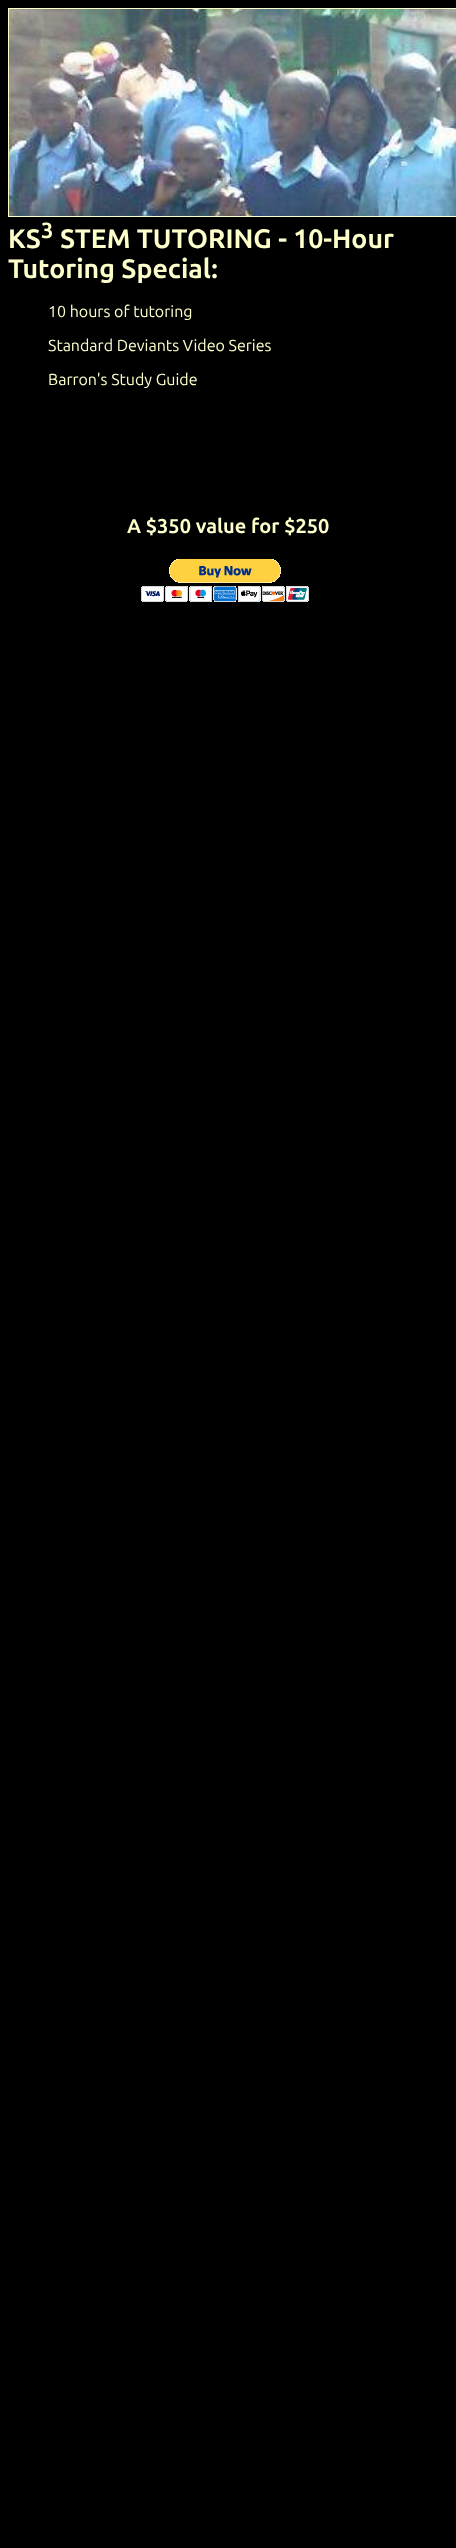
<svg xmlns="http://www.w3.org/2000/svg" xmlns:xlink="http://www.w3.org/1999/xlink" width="456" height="2548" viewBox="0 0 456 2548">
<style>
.cls-1{font:bold 26.7px Ubuntu;fill:#ffffcc}
.cls-2{font:bold 22px Ubuntu;fill:#ffffcc}
.cls-3{font:16px Ubuntu;fill:#ffffcc}
.cls-4{font:bold 20px Ubuntu;fill:#ffffcc}
</style>
<rect width="100%" height="100%" fill="#000000"/>
<rect fill="none" stroke="#ffffcc" x="8.5" y="8.5" width="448" height="208"/>
<image xlink:href="image0.png" x="9" y="9" width="447" height="207"/>
<image xlink:href="image1.png" x="141" y="559" width="168" height="43"/>
<text class="cls-1" x="8" y="248">KS</text>
<text class="cls-2" x="41" y="238">3</text>
<text class="cls-1" x="60" y="248">STEM TUTORING - 10-Hour</text>
<text class="cls-1" x="8" y="278">Tutoring Special:</text>
<text class="cls-3" x="48" y="317">10 hours of tutoring</text>
<text class="cls-3" x="48" y="351">Standard Deviants Video Series</text>
<text class="cls-3" x="48" y="385">Barron's Study Guide</text>
<text class="cls-4" x="127" y="533">A $350 value for $250</text>
</svg>
